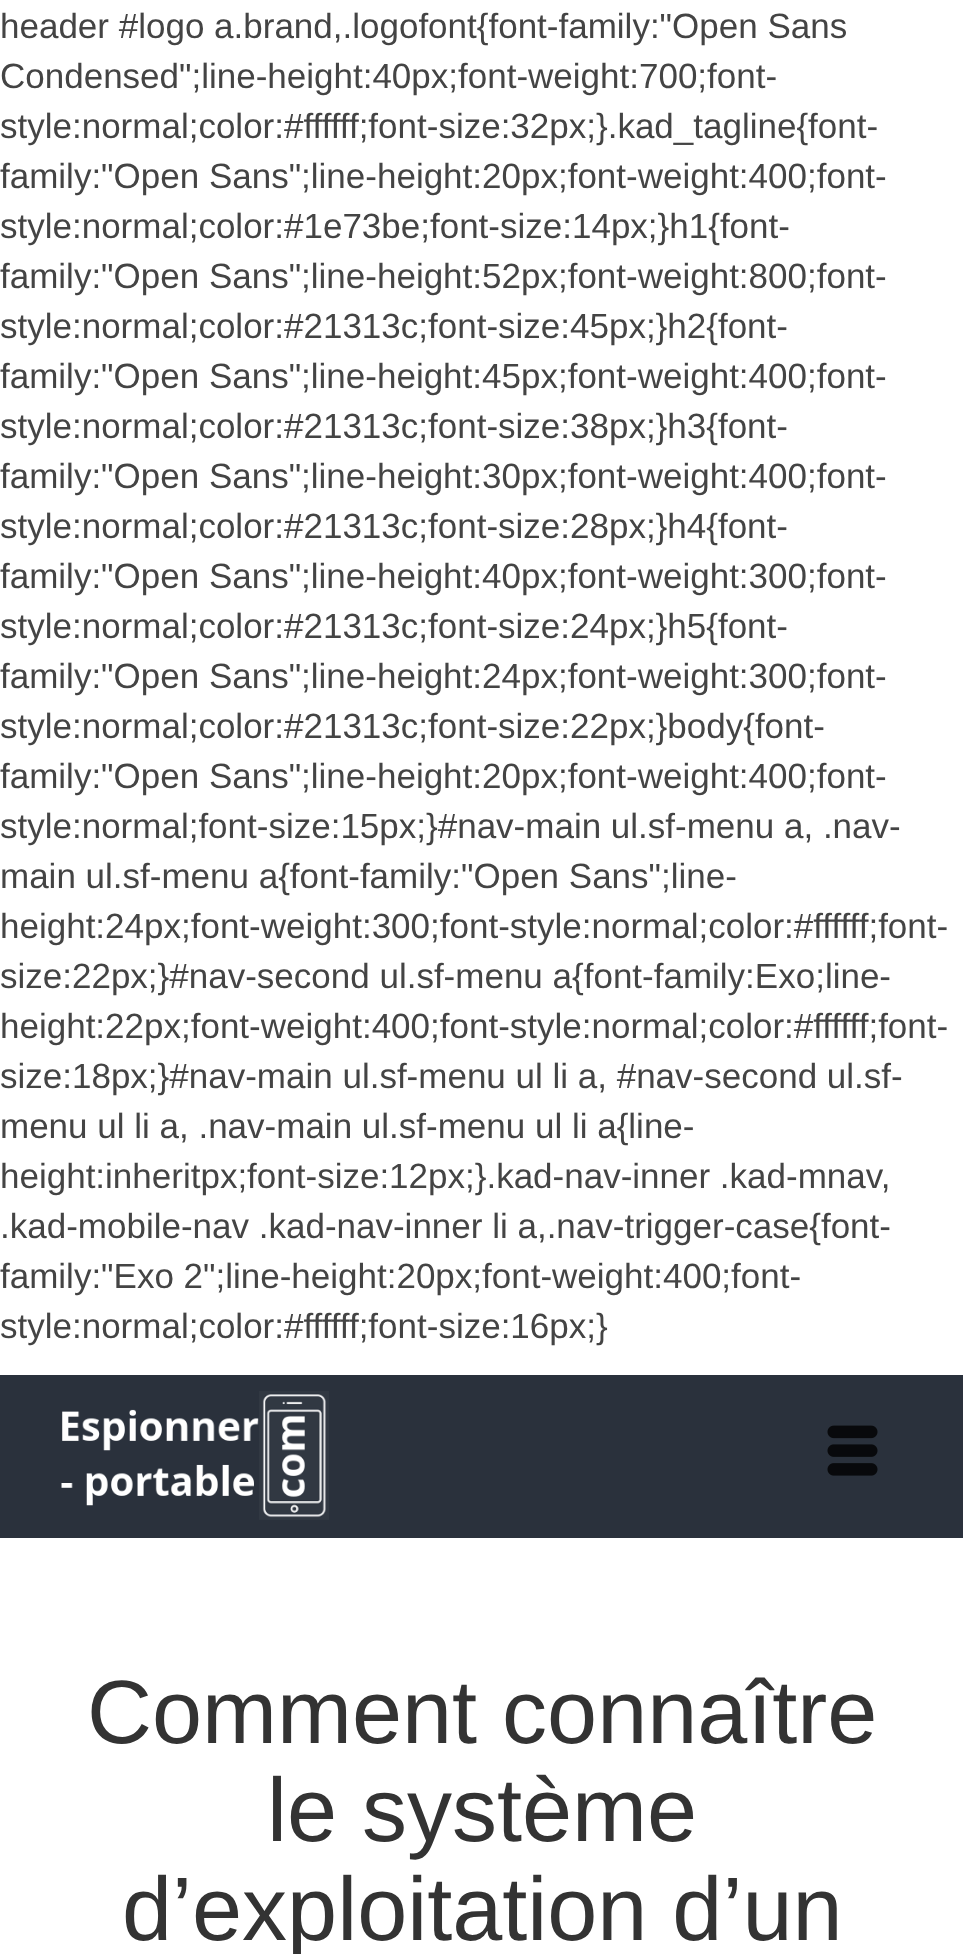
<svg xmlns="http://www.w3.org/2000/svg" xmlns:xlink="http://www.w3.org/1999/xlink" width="963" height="1954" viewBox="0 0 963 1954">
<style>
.cls-1{font:35px Liberation Sans;fill:#444444}
.cls-2{font:90px Liberation Sans;fill:#333333}
</style>
<rect width="100%" height="100%" fill="#ffffff"/>
<rect fill="#2a313c" x="0" y="1375" width="963" height="163"/>
<image xlink:href="image0.png" x="61" y="1391" width="268" height="129"/>
<image xlink:href="image1.png" x="827" y="1425" width="51" height="51"/>
<text class="cls-1"><tspan x="0" y="38">header #logo a.brand,.logofont{font-family:"Open Sans</tspan><tspan x="0" y="88">Condensed";line-height:40px;font-weight:700;font-</tspan><tspan x="0" y="138">style:normal;color:#ffffff;font-size:32px;}.kad_tagline{font-</tspan><tspan x="0" y="188">family:"Open Sans";line-height:20px;font-weight:400;font-</tspan><tspan x="0" y="238">style:normal;color:#1e73be;font-size:14px;}h1{font-</tspan><tspan x="0" y="288">family:"Open Sans";line-height:52px;font-weight:800;font-</tspan><tspan x="0" y="338">style:normal;color:#21313c;font-size:45px;}h2{font-</tspan><tspan x="0" y="388">family:"Open Sans";line-height:45px;font-weight:400;font-</tspan><tspan x="0" y="438">style:normal;color:#21313c;font-size:38px;}h3{font-</tspan><tspan x="0" y="488">family:"Open Sans";line-height:30px;font-weight:400;font-</tspan><tspan x="0" y="538">style:normal;color:#21313c;font-size:28px;}h4{font-</tspan><tspan x="0" y="588">family:"Open Sans";line-height:40px;font-weight:300;font-</tspan><tspan x="0" y="638">style:normal;color:#21313c;font-size:24px;}h5{font-</tspan><tspan x="0" y="688">family:"Open Sans";line-height:24px;font-weight:300;font-</tspan><tspan x="0" y="738">style:normal;color:#21313c;font-size:22px;}body{font-</tspan><tspan x="0" y="788">family:"Open Sans";line-height:20px;font-weight:400;font-</tspan><tspan x="0" y="838">style:normal;font-size:15px;}#nav-main ul.sf-menu a, .nav-</tspan><tspan x="0" y="888">main ul.sf-menu a{font-family:"Open Sans";line-</tspan><tspan x="0" y="938">height:24px;font-weight:300;font-style:normal;color:#ffffff;font-</tspan><tspan x="0" y="988">size:22px;}#nav-second ul.sf-menu a{font-family:Exo;line-</tspan><tspan x="0" y="1038">height:22px;font-weight:400;font-style:normal;color:#ffffff;font-</tspan><tspan x="0" y="1088">size:18px;}#nav-main ul.sf-menu ul li a, #nav-second ul.sf-</tspan><tspan x="0" y="1138">menu ul li a, .nav-main ul.sf-menu ul li a{line-</tspan><tspan x="0" y="1188">height:inheritpx;font-size:12px;}.kad-nav-inner .kad-mnav,</tspan><tspan x="0" y="1238">.kad-mobile-nav .kad-nav-inner li a,.nav-trigger-case{font-</tspan><tspan x="0" y="1288">family:"Exo 2";line-height:20px;font-weight:400;font-</tspan><tspan x="0" y="1338">style:normal;color:#ffffff;font-size:16px;}</tspan></text>
<text class="cls-2" x="87" y="1743">Comment connaître</text>
<text class="cls-2" x="267" y="1841">le système</text>
<text class="cls-2" x="122" y="1940">d’exploitation d’un</text>
</svg>
